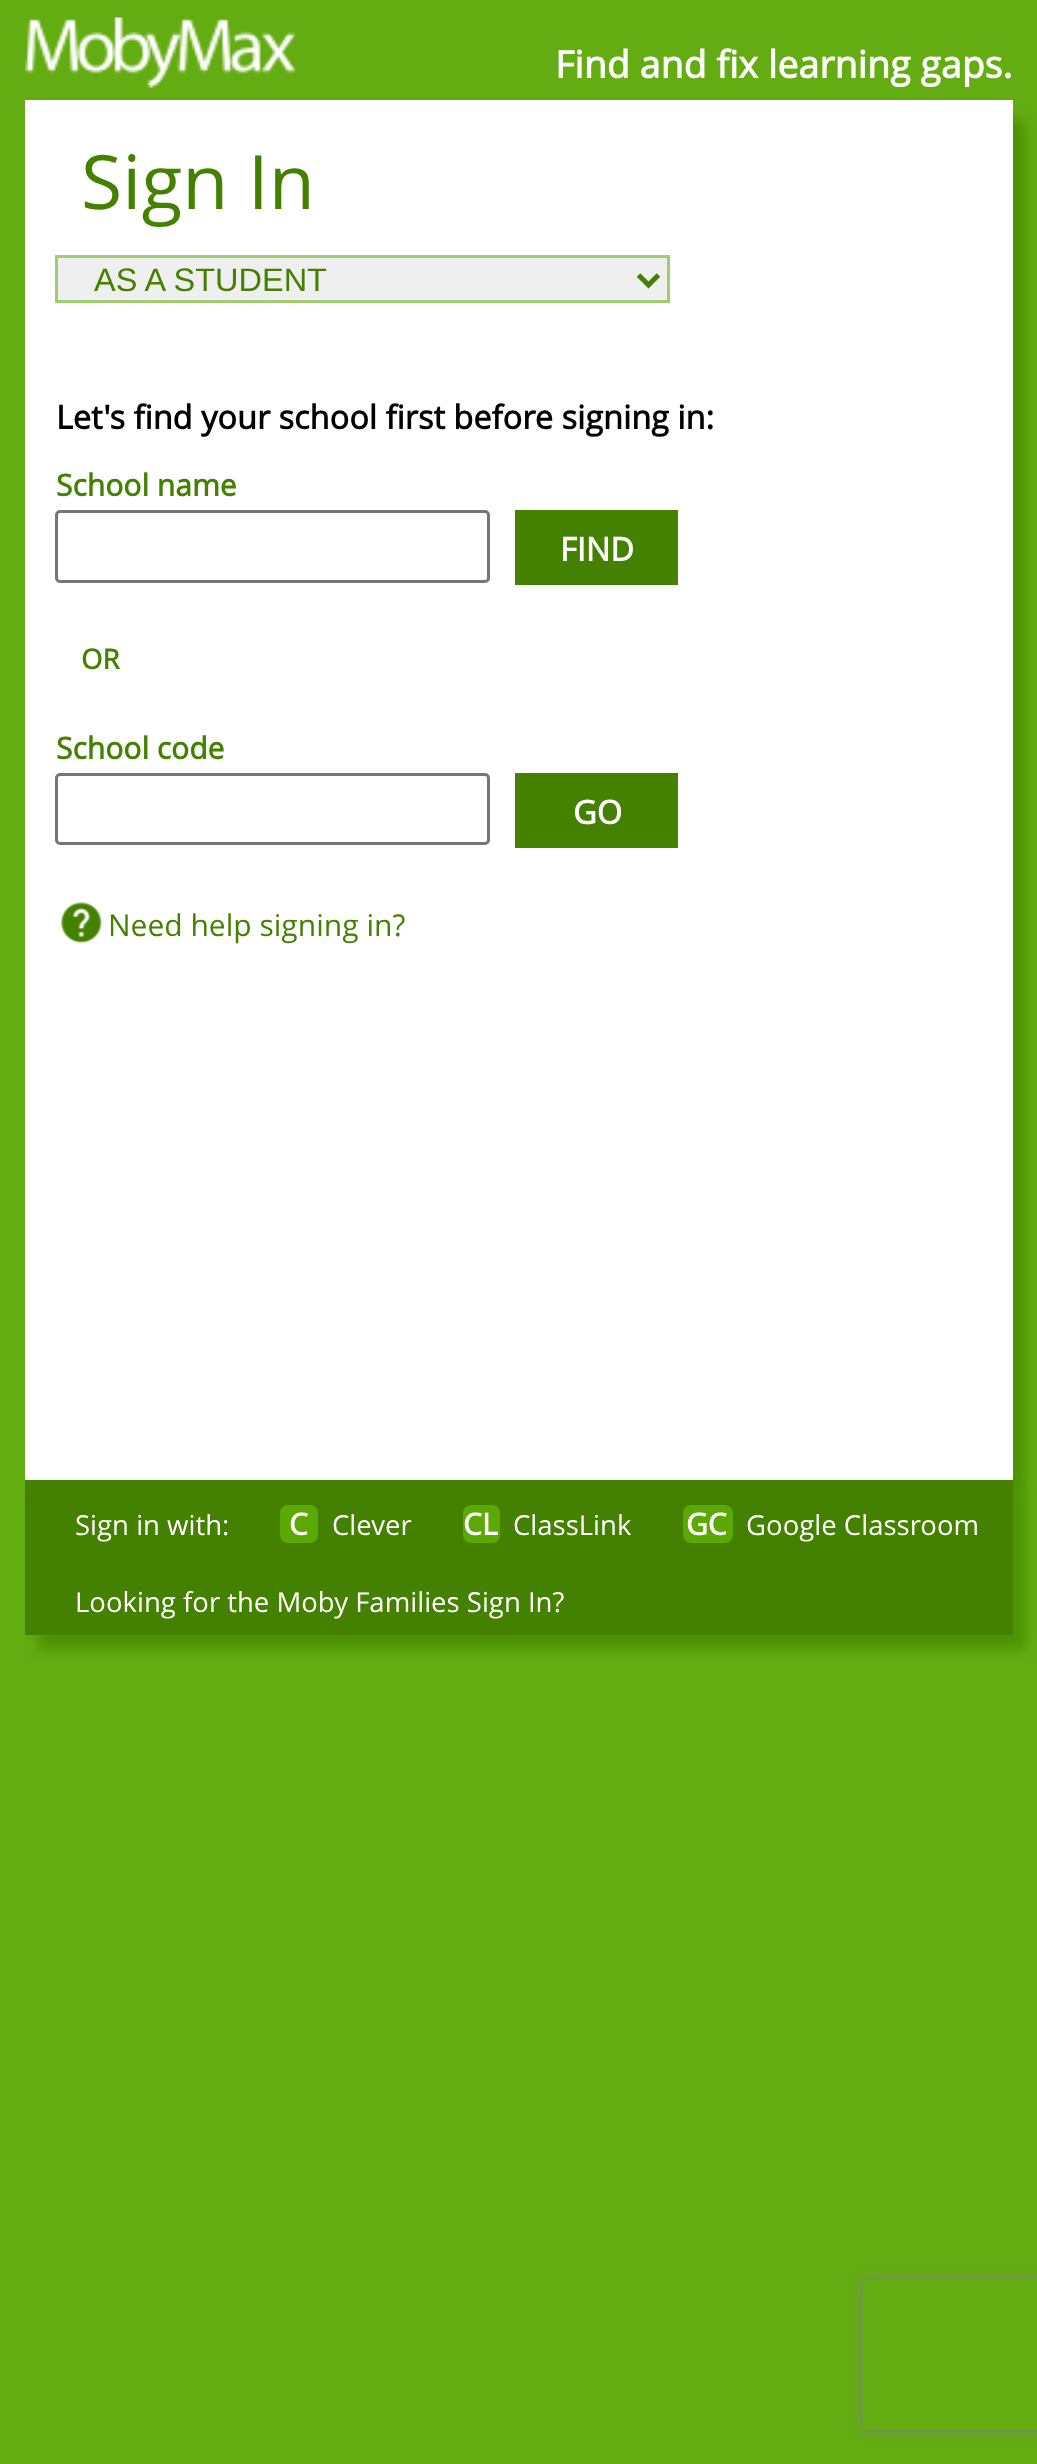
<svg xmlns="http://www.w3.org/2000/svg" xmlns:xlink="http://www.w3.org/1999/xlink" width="1037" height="2464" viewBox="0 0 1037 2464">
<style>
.cls-1{font:bold 37.5px Open Sans;fill:#ffffff}
.cls-2{font:75px Open Sans;fill:#448100}
.cls-3{font:32.5px Liberation Sans;fill:#448100}
.cls-4{font:bold 32.5px Open Sans;fill:#000000}
.cls-5{font:bold 30px Open Sans;fill:#448100}
.cls-6{font:bold 32.5px Open Sans;fill:#ffffff}
.cls-7{font:bold 27.5px Open Sans;fill:#448100}
.cls-8{font:30px Open Sans;fill:#448100}
.cls-9{font:27.5px Open Sans;fill:#ffffff}
.cls-10{font:bold 30px Open Sans;fill:#ffffff}
</style>
<defs>
<clipPath id="clip1"><path d="M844 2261H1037V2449H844ZM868 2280H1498C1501 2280 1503 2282 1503 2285V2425C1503 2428 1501 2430 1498 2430H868C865 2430 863 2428 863 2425V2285C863 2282 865 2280 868 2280Z" clip-rule="evenodd"/></clipPath>
</defs>
<rect width="100%" height="100%" fill="#63ac11"/>
<image xlink:href="image0.png" x="25" y="17" width="270" height="71"/>
<rect fill="#4c9304" filter="blur(6px)" x="38" y="120" width="987" height="1380"/>
<rect fill="#ffffff" x="25" y="100" width="988" height="1380"/>
<rect fill="#efefef" stroke="#a0ce6c" stroke-width="3" x="56.5" y="256.5" width="612" height="45"/>
<path fill="none" stroke="#448100" stroke-width="5" d="M638.5 275L648.5 285L658.5 275"/>
<rect fill="none" stroke="#767676" stroke-width="3" x="56.5" y="511.5" width="432" height="70" rx="3.5"/>
<rect fill="#448100" x="515" y="510" width="163" height="75"/>
<rect fill="none" stroke="#767676" stroke-width="3" x="56.5" y="774.5" width="432" height="69" rx="3.5"/>
<rect fill="#448100" x="515" y="773" width="163" height="75"/>
<image xlink:href="image1.png" x="60" y="902" width="43" height="42"/>
<rect fill="#4c9304" filter="blur(6px)" x="38" y="1495" width="987" height="155"/>
<rect fill="#448100" x="25" y="1480" width="988" height="155"/>
<rect fill="#5ca905" x="280" y="1505" width="38" height="38" rx="8"/>
<rect fill="#5ca905" x="463" y="1505" width="37" height="38" rx="8"/>
<rect fill="#5ca905" x="683" y="1505" width="50" height="38" rx="8"/>
<g clip-path="url(#clip1)">
<rect fill="#808080" filter="blur(6px)" x="863" y="2280" width="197" height="150" rx="5"/>
</g>
<text class="cls-1" x="555" y="78">Find and fix learning gaps.</text>
<text class="cls-2" x="81" y="209">Sign In</text>
<text class="cls-3" x="94" y="291">AS A STUDENT</text>
<text class="cls-4" x="56" y="429">Let's find your school first before signing in:</text>
<text class="cls-5" x="56" y="496">School name</text>
<text class="cls-6" x="560" y="561">FIND</text>
<text class="cls-7" x="81" y="669">OR</text>
<text class="cls-5" x="56" y="759">School code</text>
<text class="cls-6" x="573" y="824">GO</text>
<text class="cls-8" x="108" y="936">Need help signing in?</text>
<text class="cls-9" x="75" y="1535">Sign in with:</text>
<text class="cls-10" x="289" y="1535">C</text>
<text class="cls-9" x="332" y="1535">Clever</text>
<text class="cls-10" x="463" y="1535">CL</text>
<text class="cls-9" x="513" y="1535">ClassLink</text>
<text class="cls-10" x="686" y="1535">GC</text>
<text class="cls-9" x="746" y="1535">Google Classroom</text>
<text class="cls-9" x="75" y="1612">Looking for the Moby Families Sign In?</text>
</svg>
